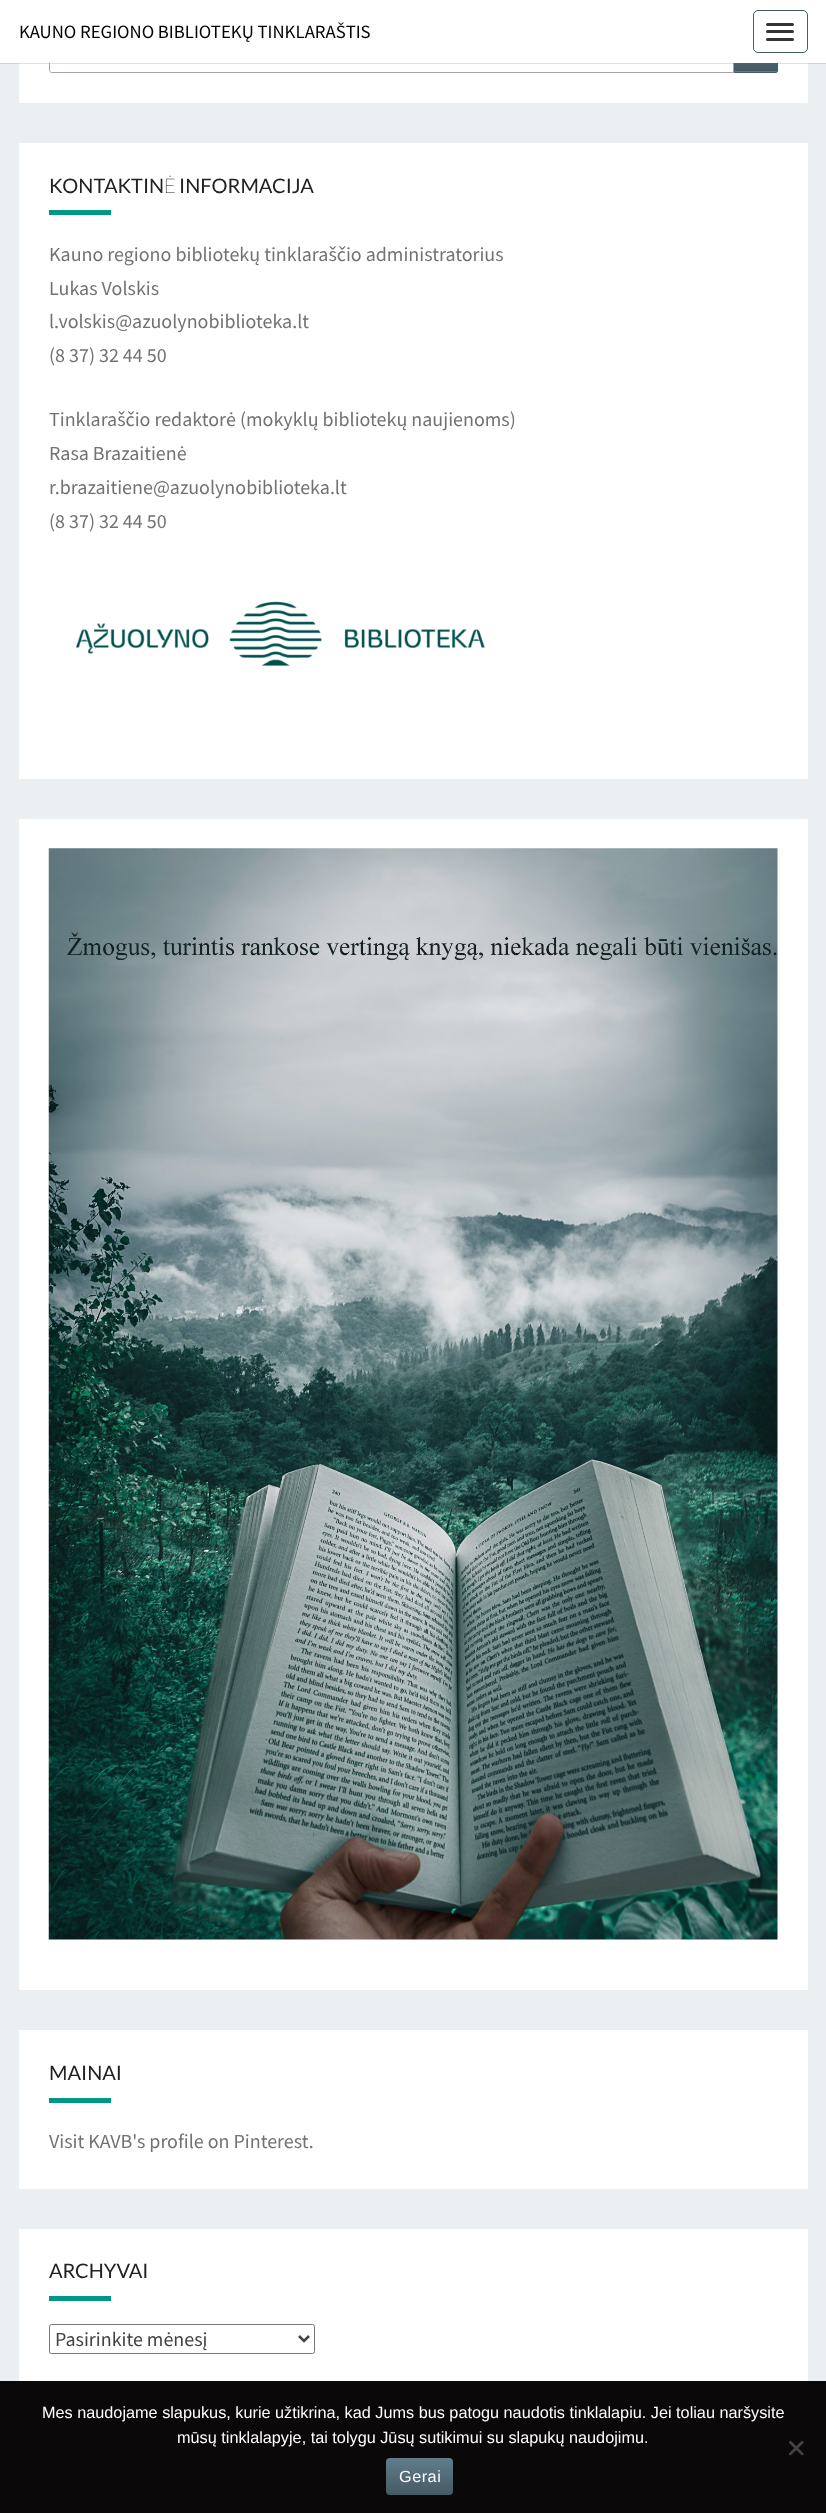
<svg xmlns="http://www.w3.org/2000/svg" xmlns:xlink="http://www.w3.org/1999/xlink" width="826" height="2513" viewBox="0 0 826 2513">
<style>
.cls-1{font:18.75px Source Sans Pro;fill:#000000}
.cls-2{font:20px Lato;fill:#212121}
.cls-3{font:100 20px Roboto;fill:#212121}
.cls-4{font:20px Source Sans Pro;fill:#727272}
.cls-5{font:20px Source Sans Pro;fill:#424242}
.cls-6{font:16.25px Liberation Sans;fill:#ffffff}
.cls-7{font:16.25px Liberation Sans;letter-spacing:0.5px;fill:#ffffff}
</style>
<defs>
<linearGradient id="g1" gradientUnits="userSpaceOnUse" x1="756" y1="25" x2="756" y2="71"><stop offset="0" stop-color="#607d8b"/><stop offset="1" stop-color="#455a64"/></linearGradient>
<clipPath id="clip1"><path d="M734 24H775.5C777 24 778 25 778 26.5V70.5C778 72 777 73 775.5 73H734Z"/></clipPath>
<linearGradient id="g2" gradientUnits="userSpaceOnUse" x1="756" y1="71" x2="756" y2="118"><stop offset="0" stop-color="#607d8b"/><stop offset="1" stop-color="#455a64"/></linearGradient>
<linearGradient id="g3" gradientUnits="userSpaceOnUse" x1="419" y1="2458" x2="419" y2="2495"><stop offset="0" stop-color="#607d8b"/><stop offset="1" stop-color="#455a64"/></linearGradient>
</defs>
<rect width="100%" height="100%" fill="#eceff1"/>
<rect fill="#ffffff" x="19" y="63" width="789" height="40"/>
<path fill="none" stroke="#aaa1a8" d="M51.5 24.5H733.5V72.5H51.5C50.5 72.5 49.5 71.5 49.5 70.5V26.5C49.5 25.5 50.5 24.5 51.5 24.5Z"/>
<rect fill="url(#g1)" x="735" y="63" width="43" height="8"/>
<g clip-path="url(#clip1)">
<rect fill="url(#g2)" x="734" y="71" width="44" height="2"/>
</g>
<path fill="none" stroke="#455a64" d="M734.5 24.5H775.5C776.5 24.5 777.5 25.5 777.5 26.5V70.5C777.5 71.5 776.5 72.5 775.5 72.5H734.5Z"/>
<rect fill="#646464" fill-opacity="0.2" filter="blur(0.5px)" x="0" y="1" width="826" height="63"/>
<rect fill="#ffffff" x="0" y="0" width="826" height="63"/>
<rect fill="none" stroke="#455a64" x="753.5" y="10.5" width="54" height="42" rx="4.5"/>
<rect fill="#333333" x="766" y="23" width="28" height="3" rx="1.5"/>
<rect fill="#333333" x="766" y="30" width="28" height="3" rx="1.5"/>
<rect fill="#333333" x="766" y="38" width="28" height="3" rx="1.5"/>
<rect fill="#ffffff" x="19" y="143" width="789" height="636"/>
<rect fill="#009688" x="49" y="210" width="62" height="5"/>
<image xlink:href="image0.png" x="75" y="601" width="410" height="65"/>
<rect fill="#ffffff" x="19" y="819" width="789" height="1171"/>
<image xlink:href="image1.png" x="48" y="848" width="730" height="1092"/>
<rect fill="#ffffff" x="19" y="2030" width="789" height="159"/>
<rect fill="#009688" x="49" y="2098" width="62" height="5"/>
<rect fill="#ffffff" x="19" y="2229" width="789" height="152"/>
<rect fill="#009688" x="49" y="2296" width="62" height="5"/>
<rect fill="none" stroke="#767676" x="49.5" y="2324.5" width="265" height="29" rx="2"/>
<path fill="none" stroke="#424242" stroke-width="2.5" d="M299 2336L304 2341L309 2336"/>
<rect fill="#0a0808" x="0" y="2381" width="826" height="132"/>
<path fill="#454444" d="M802 2440.5L804 2442.5L790.5 2455.5L788.5 2454Z"/>
<path fill="#454444" d="M788.5 2442.5L790.5 2440.5L804 2454L802 2455.5Z"/>
<rect fill="url(#g3)" x="386" y="2458" width="67" height="37" rx="4"/>
<text class="cls-1" x="19" y="38">KAUNO REGIONO BIBLIOTEKŲ TINKLARAŠTIS</text>
<text class="cls-2" x="49" y="193">KONTAKTIN</text>
<text class="cls-3" x="164" y="193">Ė</text>
<text class="cls-2" x="179" y="193">INFORMACIJA</text>
<text class="cls-4"><tspan x="49" y="261">Kauno regiono bibliotekų tinklaraščio administratorius</tspan><tspan x="49" y="295">Lukas Volskis</tspan><tspan x="49" y="328">l.volskis@azuolynobiblioteka.lt</tspan><tspan x="49" y="362">(8 37) 32 44 50</tspan></text>
<text class="cls-4"><tspan x="49" y="426">Tinklaraščio redaktorė (mokyklų bibliotekų naujienoms)</tspan><tspan x="49" y="460">Rasa Brazaitienė</tspan><tspan x="49" y="494">r.brazaitiene@azuolynobiblioteka.lt</tspan><tspan x="49" y="528">(8 37) 32 44 50</tspan></text>
<text class="cls-2" x="49" y="2080">MAINAI</text>
<text class="cls-4" x="49" y="2148">Visit KAVB's profile on Pinterest.</text>
<text class="cls-2" x="49" y="2278">ARCHYVAI</text>
<text class="cls-5" x="55" y="2346">Pasirinkite mėnesį</text>
<text class="cls-6" x="42" y="2418">Mes naudojame slapukus, kurie užtikrina, kad Jums bus patogu naudotis tinklalapiu. Jei toliau naršysite</text>
<text class="cls-6" x="177" y="2443">mūsų tinklalapyje, tai tolygu Jūsų sutikimui su slapukų naudojimu.</text>
<text class="cls-7" x="399" y="2482">Gerai</text>
</svg>
